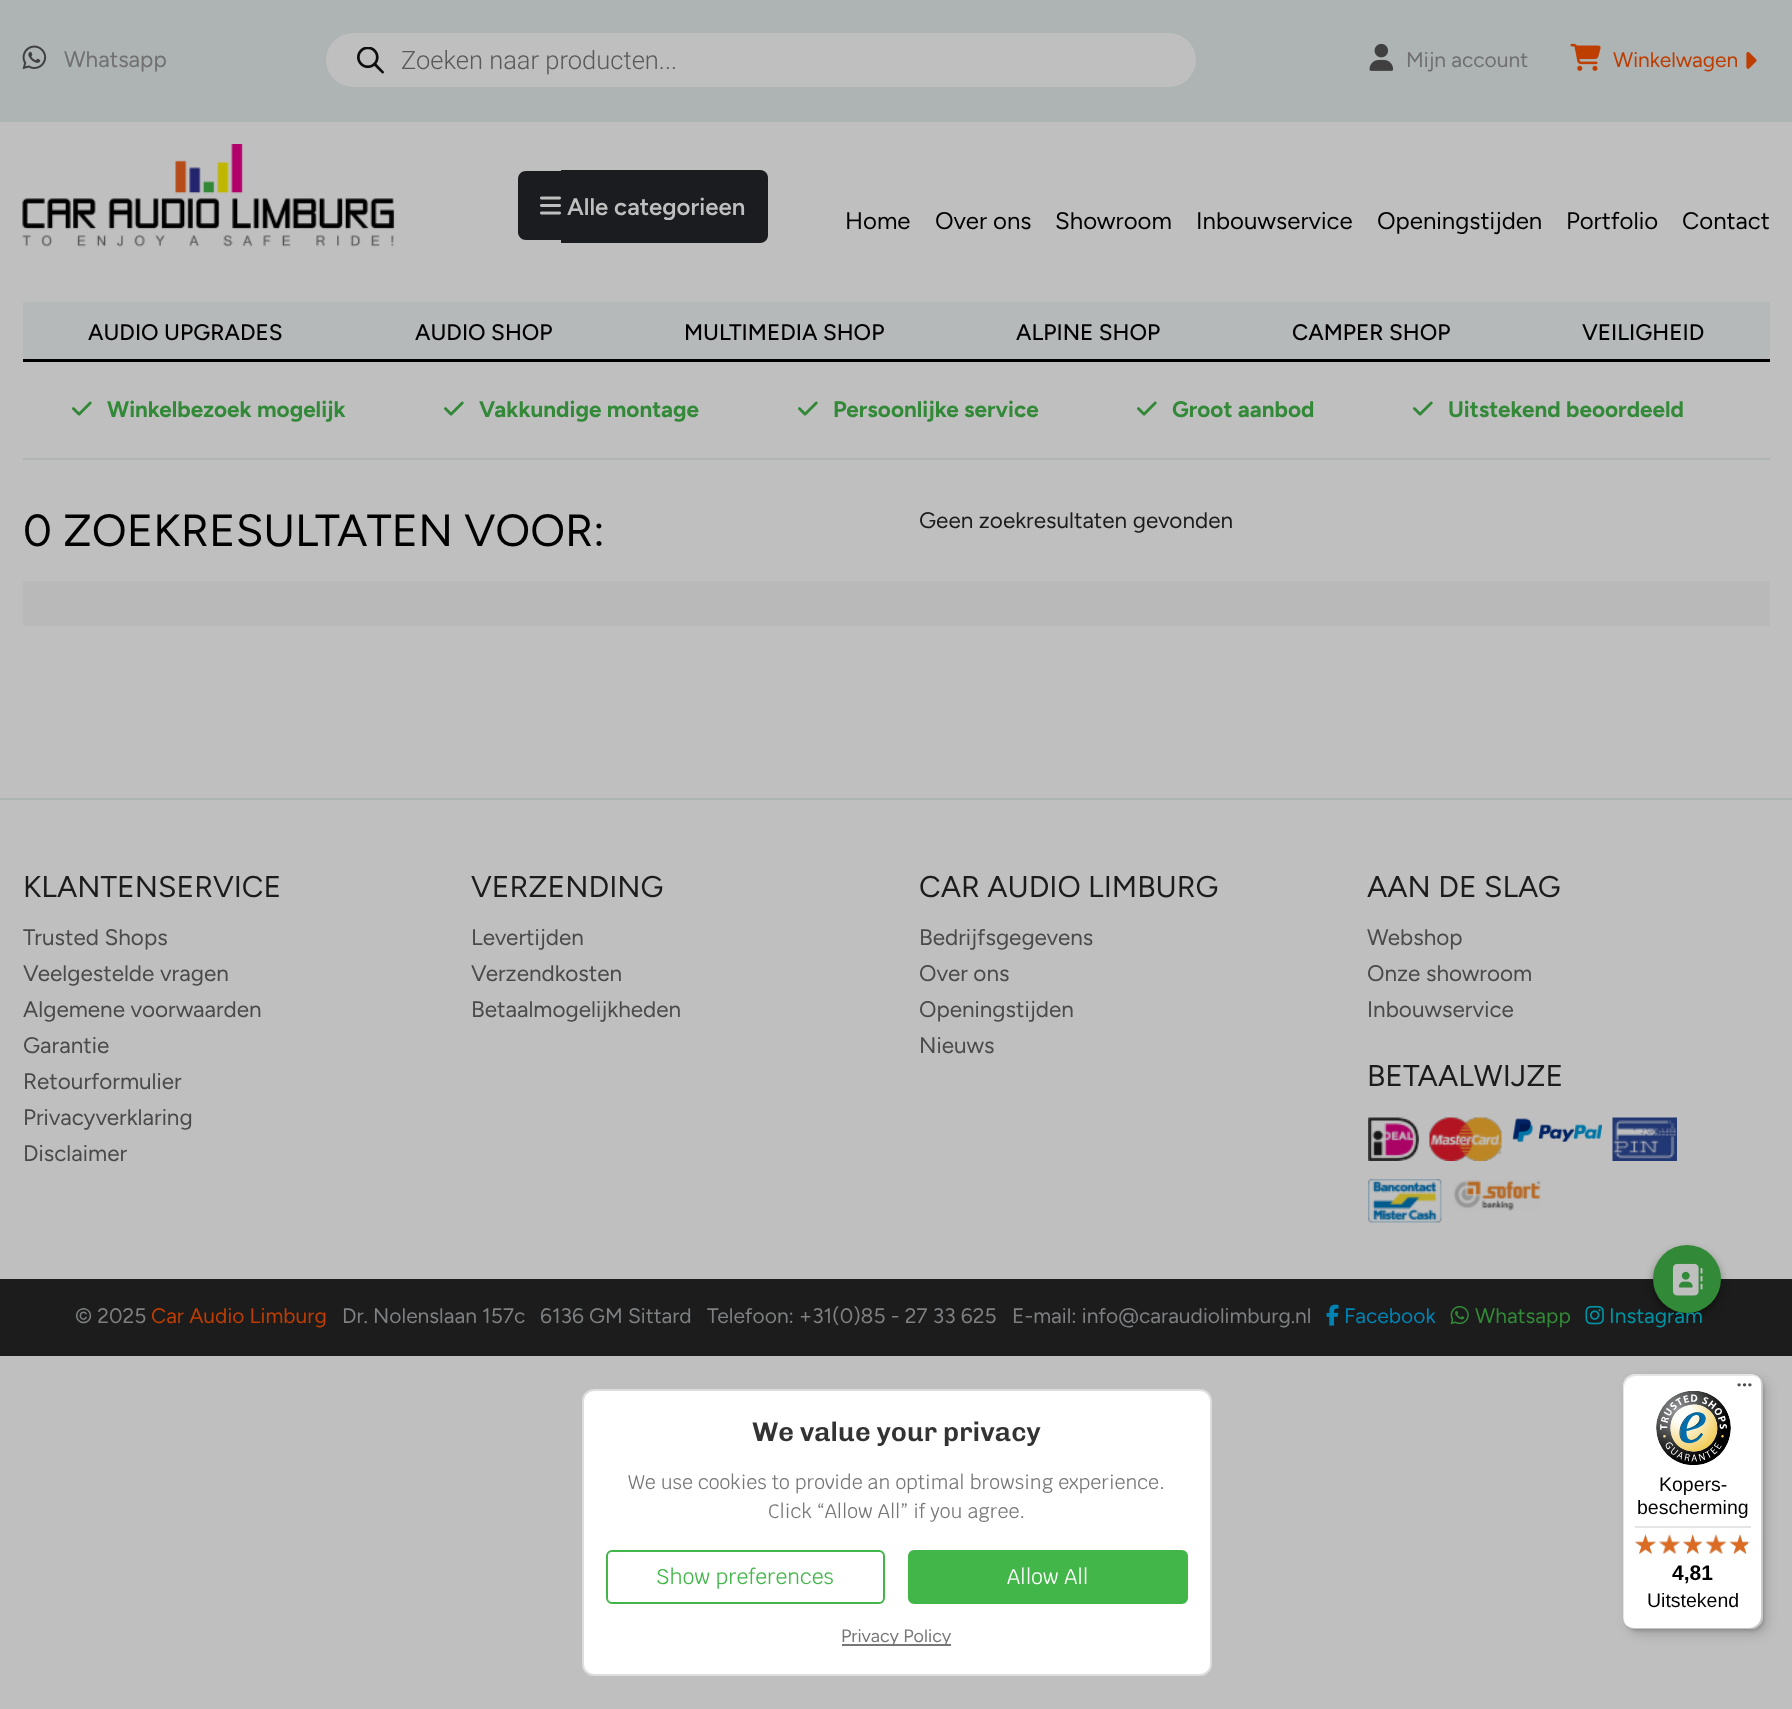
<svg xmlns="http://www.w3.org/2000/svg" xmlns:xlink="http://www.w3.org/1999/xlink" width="1792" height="1709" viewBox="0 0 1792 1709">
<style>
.cls-1{font:22.5px Figtree;fill:#707070}
.cls-2{font:300 25.5px Roboto;fill:#595959}
.cls-3{font:21px Figtree;fill:#707070}
.cls-4{font:21px Figtree;fill:#be3d00}
.cls-5{font:600 24px Figtree;fill:#bfbfbf}
.cls-6{font:24px Figtree;fill:#000000}
.cls-7{font:500 22.5px Figtree;fill:#000000}
.cls-8{font:bold 22.5px Figtree;fill:#328937}
.cls-9{font:45px Figtree;fill:#000000}
.cls-10{font:22.5px Figtree;fill:#1c1c1c}
.cls-11{font:30px Figtree;fill:#1c1c1c}
.cls-12{font:22.5px Figtree;fill:#4a4a4a}
.cls-13{font:21px Figtree;fill:#7d7f81}
.cls-14{font:21px Figtree;fill:#0083b3}
.cls-15{font:21px Figtree;fill:#328937}
.cls-16{font:21px Figtree;fill:#0093a4}
.cls-17{font:600 27px Chivo;fill:#333333}
.cls-18{font:19.5px Krub;fill:#777777}
.cls-19{font:21px Krub;fill:#42b649}
.cls-20{font:21px Krub;fill:#ffffff}
.cls-21{font:18px Figtree;fill:#777777}
.cls-22{font:19.5px Liberation Sans;fill:#000000}
.cls-23{font:bold 21px Liberation Sans;fill:#000000}
</style>
<rect width="100%" height="100%" fill="#bfbfbf"/>
<rect fill="#aeb3b3" x="0" y="0" width="1792" height="122"/>
<image xlink:href="image0.png" x="22" y="45" width="25" height="25"/>
<rect fill="#bfbfbf" x="326" y="33" width="870" height="54" rx="27"/>
<image xlink:href="image1.png" x="357" y="47" width="27" height="27"/>
<image xlink:href="image2.png" x="1369" y="43" width="25" height="28"/>
<image xlink:href="image3.png" x="1570" y="43" width="31" height="28"/>
<image xlink:href="image4.png" x="1746" y="52" width="11" height="17"/>
<image xlink:href="image5.png" x="22" y="144" width="373" height="103"/>
<path fill="#1a1c1f" d="M526 171H561V240H526C521.5 240 518 236.5 518 232V179C518 174.5 521.5 171 526 171Z"/>
<path fill="#1a1c1f" d="M561 170H760C764.5 170 768 173.5 768 178V235C768 239.5 764.5 243 760 243H561Z"/>
<image xlink:href="image6.png" x="540" y="196" width="21" height="19"/>
<rect fill="#b6b9b9" x="23" y="302" width="1747" height="57"/>
<rect fill="#000000" x="23" y="359" width="1747" height="3"/>
<rect fill="#aeb3b3" x="23" y="458" width="1747" height="2"/>
<image xlink:href="image7.png" x="72" y="401" width="20" height="15"/>
<image xlink:href="image7.png" x="444" y="401" width="20" height="15"/>
<image xlink:href="image7.png" x="798" y="401" width="20" height="15"/>
<image xlink:href="image7.png" x="1137" y="401" width="20" height="15"/>
<image xlink:href="image7.png" x="1413" y="401" width="20" height="15"/>
<rect fill="#b9b9b9" x="23" y="581" width="1747" height="45"/>
<rect fill="#aeb3b3" x="0" y="798" width="1792" height="2"/>
<image xlink:href="image8.png" x="1368" y="1117" width="51" height="44"/>
<image xlink:href="image9.png" x="1429" y="1117" width="73" height="44"/>
<image xlink:href="image10.png" x="1512" y="1118" width="90" height="24"/>
<image xlink:href="image11.png" x="1612" y="1117" width="65" height="44"/>
<image xlink:href="image12.png" x="1368" y="1179" width="74" height="44"/>
<image xlink:href="image13.png" x="1453" y="1180" width="88" height="31"/>
<rect fill="#1c1c1c" x="0" y="1279" width="1792" height="77"/>
<image xlink:href="image14.png" x="1326" y="1304" width="13" height="22"/>
<image xlink:href="image15.png" x="1450" y="1305" width="19" height="20"/>
<image xlink:href="image16.png" x="1585" y="1305" width="19" height="20"/>
<rect fill="#000000" fill-opacity="0.4" filter="blur(4.5px)" x="1653" y="1250" width="68" height="67" rx="33.5"/>
<rect fill="#ffffff" stroke="#dddddd" stroke-width="2" x="583" y="1390" width="628" height="285" rx="11"/>
<rect fill="none" stroke="#42b649" stroke-width="2" x="607" y="1551" width="277" height="52" rx="5"/>
<rect fill="#42b649" stroke="#42b649" stroke-width="2" x="909" y="1551" width="278" height="52" rx="5"/>
<rect fill="#777777" x="842" y="1644" width="109" height="2"/>
<rect fill="#000000" fill-opacity="0.15" filter="blur(6px)" x="1628" y="1379" width="139" height="255" rx="12"/>
<rect fill="#000000" fill-opacity="0.15" filter="blur(1.5px)" x="1625" y="1376" width="139" height="255" rx="12"/>
<rect fill="#ffffff" x="1623" y="1374" width="140" height="255" rx="12"/>
<path fill="#000000" fill-opacity="0.1" d="M1636 1376H1752C1756 1376 1760 1378 1762 1381C1760 1377 1756 1374 1751 1374H1635C1628 1374 1623 1379 1623 1386V1617C1623 1621 1625 1624 1627 1626C1625 1624 1624 1621 1624 1618V1388C1624 1381 1630 1376 1636 1376Z"/>
<path fill="#000000" fill-opacity="0.2" d="M1626 1625C1628 1627 1631 1629 1635 1629H1751C1758 1629 1763 1624 1763 1617V1386C1763 1382 1761 1379 1758 1376C1760 1379 1761 1381 1761 1384V1616C1761 1622 1756 1628 1749 1628H1634C1631 1628 1628 1627 1626 1625Z"/>
<path fill="#323232" fill-opacity="0.2" d="M1627 1626C1629 1628 1632 1629 1635 1629H1751C1758 1629 1763 1624 1763 1617V1386C1763 1382 1761 1379 1759 1377C1761 1379 1762 1382 1762 1385V1616C1762 1623 1756 1628 1750 1628H1634C1631 1628 1629 1627 1627 1626Z"/>
<path fill="#ffffff" fill-opacity="0.3" d="M1626 1625C1628 1627 1631 1629 1635 1629H1751C1758 1629 1763 1624 1763 1617V1386C1763 1381 1761 1378 1757 1376C1760 1378 1762 1381 1762 1385V1616C1762 1623 1756 1628 1750 1628H1634C1631 1628 1628 1627 1626 1625Z"/>
<image xlink:href="image18.png" x="1737" y="1383" width="15" height="4"/>
<image xlink:href="image19.png" x="1656" y="1391" width="75" height="75"/>
<rect fill="#e5e5e5" x="1635" y="1526" width="116" height="2"/>
<image xlink:href="image25.png" x="1635" y="1535" width="21" height="19"/>
<image xlink:href="image20.png" x="1635" y="1534" width="21" height="20"/>
<image xlink:href="image26.png" x="1659" y="1535" width="21" height="19"/>
<image xlink:href="image21.png" x="1659" y="1534" width="21" height="20"/>
<image xlink:href="image27.png" x="1683" y="1535" width="19" height="19"/>
<image xlink:href="image22.png" x="1683" y="1534" width="19" height="20"/>
<image xlink:href="image28.png" x="1706" y="1535" width="20" height="19"/>
<image xlink:href="image23.png" x="1705" y="1534" width="22" height="20"/>
<image xlink:href="image29.png" x="1730" y="1535" width="20" height="19"/>
<image xlink:href="image24.png" x="1730" y="1534" width="18" height="20"/>
<text class="cls-1" x="64" y="67">Whatsapp</text>
<text class="cls-2" x="401" y="69">Zoeken naar producten...</text>
<text class="cls-3" x="1406" y="67">Mijn account</text>
<text class="cls-4" x="1613" y="67">Winkelwagen</text>
<text class="cls-5" x="567" y="215">Alle categorieen</text>
<text class="cls-6" x="845" y="229">Home</text>
<text class="cls-6" x="935" y="229">Over ons</text>
<text class="cls-6" x="1055" y="229">Showroom</text>
<text class="cls-6" x="1196" y="229">Inbouwservice</text>
<text class="cls-6" x="1377" y="229">Openingstijden</text>
<text class="cls-6" x="1566" y="229">Portfolio</text>
<text class="cls-6" x="1682" y="229">Contact</text>
<text class="cls-7" x="88" y="340">AUDIO UPGRADES</text>
<text class="cls-7" x="415" y="340">AUDIO SHOP</text>
<text class="cls-7" x="684" y="340">MULTIMEDIA SHOP</text>
<text class="cls-7" x="1016" y="340">ALPINE SHOP</text>
<text class="cls-7" x="1292" y="340">CAMPER SHOP</text>
<text class="cls-7" x="1582" y="340">VEILIGHEID</text>
<text class="cls-8" x="107" y="417">Winkelbezoek mogelijk</text>
<text class="cls-8" x="479" y="417">Vakkundige montage</text>
<text class="cls-8" x="833" y="417">Persoonlijke service</text>
<text class="cls-8" x="1172" y="417">Groot aanbod</text>
<text class="cls-8" x="1448" y="417">Uitstekend beoordeeld</text>
<text class="cls-9" x="23" y="546">0 ZOEKRESULTATEN VOOR:</text>
<text class="cls-10" x="919" y="528">Geen zoekresultaten gevonden</text>
<text class="cls-11" x="23" y="897">KLANTENSERVICE</text>
<text class="cls-12"><tspan x="23" y="945">Trusted Shops</tspan><tspan x="23" y="981">Veelgestelde vragen</tspan><tspan x="23" y="1017">Algemene voorwaarden</tspan><tspan x="23" y="1053">Garantie</tspan><tspan x="23" y="1089">Retourformulier</tspan><tspan x="23" y="1125">Privacyverklaring</tspan><tspan x="23" y="1161">Disclaimer</tspan></text>
<text class="cls-11" x="471" y="897">VERZENDING</text>
<text class="cls-12"><tspan x="471" y="945">Levertijden</tspan><tspan x="471" y="981">Verzendkosten</tspan><tspan x="471" y="1017">Betaalmogelijkheden</tspan></text>
<text class="cls-11" x="919" y="897">CAR AUDIO LIMBURG</text>
<text class="cls-12"><tspan x="919" y="945">Bedrijfsgegevens</tspan><tspan x="919" y="981">Over ons</tspan><tspan x="919" y="1017">Openingstijden</tspan><tspan x="919" y="1053">Nieuws</tspan></text>
<text class="cls-11" x="1367" y="897">AAN DE SLAG</text>
<text class="cls-12"><tspan x="1367" y="945">Webshop</tspan><tspan x="1367" y="981">Onze showroom</tspan><tspan x="1367" y="1017">Inbouwservice</tspan></text>
<text class="cls-11" x="1367" y="1086">BETAALWIJZE</text>
<text class="cls-13" x="75" y="1323">© 2025</text>
<text class="cls-4" x="151" y="1323">Car Audio Limburg</text>
<text class="cls-13" x="342" y="1323">Dr. Nolenslaan 157c</text>
<text class="cls-13" x="540" y="1323">6136 GM Sittard</text>
<text class="cls-13" x="707" y="1323">Telefoon: +31(0)85 - 27 33 625</text>
<text class="cls-13" x="1012" y="1323">E-mail: info@caraudiolimburg.nl</text>
<text class="cls-14" x="1344" y="1323">Facebook</text>
<text class="cls-15" x="1475" y="1323">Whatsapp</text>
<text class="cls-16" x="1609" y="1323">Instagram</text>
<circle fill="#328937" cx="1687" cy="1279" r="34"/>
<image xlink:href="image17.png" x="1672" y="1263" width="31" height="33"/>
<text class="cls-17" x="752" y="1441">We value your privacy</text>
<text class="cls-18" x="628" y="1489">We use cookies to provide an optimal browsing experience.</text>
<text class="cls-18" x="768" y="1518">Click “Allow All” if you agree.</text>
<text class="cls-19" x="656" y="1584">Show preferences</text>
<text class="cls-20" x="1007" y="1584">Allow All</text>
<text class="cls-21" x="841" y="1642">Privacy Policy</text>
<text class="cls-22" x="1659" y="1491">Kopers-</text>
<text class="cls-22" x="1637" y="1514">bescherming</text>
<text class="cls-23" x="1672" y="1580">4,81</text>
<text class="cls-22" x="1647" y="1607">Uitstekend</text>
</svg>
